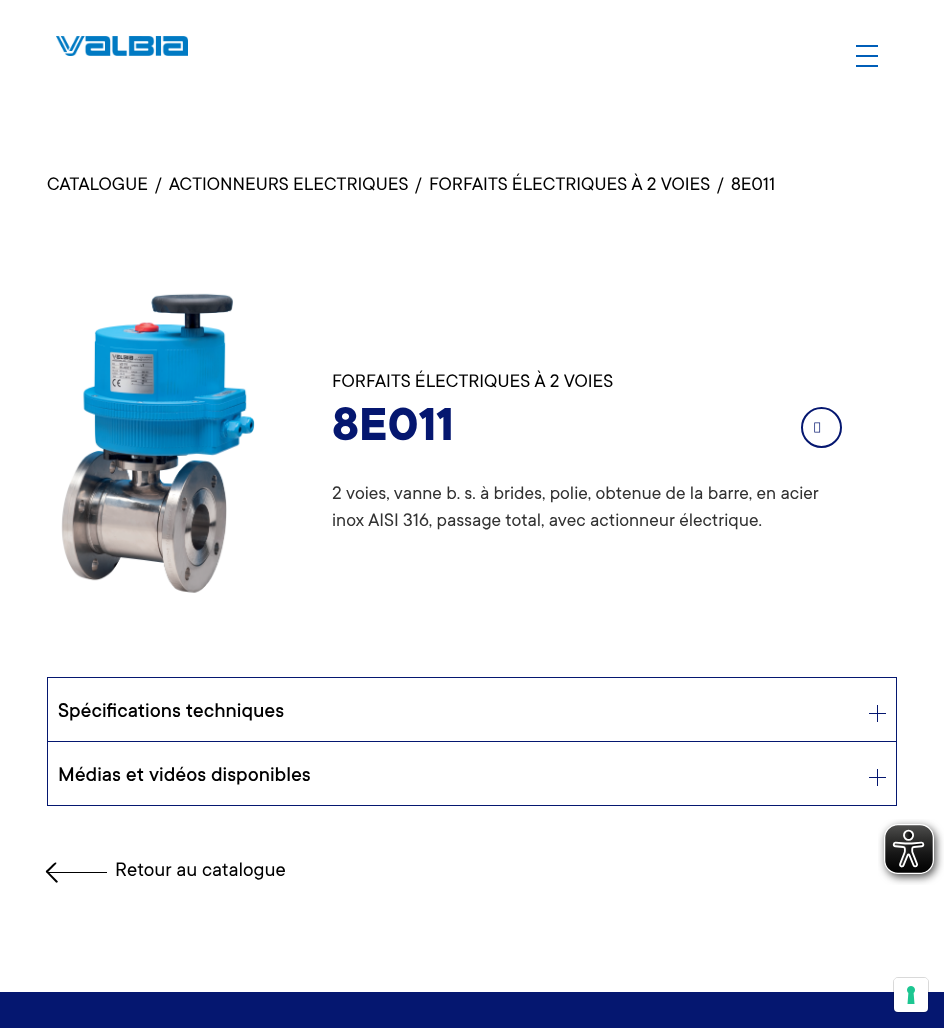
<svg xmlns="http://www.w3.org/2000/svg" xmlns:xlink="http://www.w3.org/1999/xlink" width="944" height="1028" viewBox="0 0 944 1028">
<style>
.cls-1{font:20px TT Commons;fill:#000000}
.cls-2{font:bold 51px TT Commons;fill:#051770}
.cls-3{font:20px TT Commons;fill:#333333}
.cls-4{font:500 22px TT Commons;fill:#000000}
.cls-5{font:21.5px TT Commons;fill:#000000}
</style>
<rect width="100%" height="100%" fill="#ffffff"/>
<image xlink:href="image0.png" x="56" y="36" width="132" height="20"/>
<rect fill="#005eb8" x="856" y="45" width="22" height="2"/>
<rect fill="#005eb8" x="856" y="55" width="22" height="2"/>
<rect fill="#005eb8" x="856" y="65" width="22" height="2"/>
<image xlink:href="image1.png" x="61" y="293" width="194" height="300"/>
<circle fill="none" stroke="#051770" stroke-width="2" cx="821.5" cy="427.5" r="19.5"/>
<image xlink:href="image2.png" x="814" y="422" width="7" height="11"/>
<rect fill="#051770" x="47" y="677" width="850" height="1"/>
<rect fill="#051770" x="896" y="677" width="1" height="129"/>
<rect fill="#051770" x="47" y="677" width="1" height="129"/>
<rect fill="#051770" x="48" y="741" width="848" height="1"/>
<rect fill="#051770" x="877" y="705" width="1" height="17"/>
<rect fill="#051770" x="869" y="713" width="17" height="1"/>
<rect fill="#051770" x="48" y="805" width="848" height="1"/>
<rect fill="#051770" x="877" y="769" width="1" height="17"/>
<rect fill="#051770" x="869" y="777" width="17" height="1"/>
<rect fill="#000000" x="47" y="872" width="60" height="1"/>
<path fill="#000000" d="M56 864L47.5 872.5H46.5C45 871.5 47 870 47.5 869.5C49 868.5 54.5 861.5 56 862.5C56.5 862.5 56.5 863.5 56 864Z"/>
<path fill="#000000" d="M56 882.5L46 872C45.5 871.5 46.5 870.5 47 870.5L57.5 881C58.5 882 57 883 56 882.5Z"/>
<image xlink:href="image3.png" x="878" y="819" width="66" height="66"/>
<rect fill="#051770" x="0" y="992" width="944" height="36"/>
<rect fill="none" stroke="#000000" stroke-opacity="0.15" x="893.5" y="977.5" width="35" height="35" rx="4.5"/>
<rect fill="#ffffff" x="894" y="978" width="34" height="34" rx="4"/>
<image xlink:href="image4.png" x="907" y="986" width="8" height="18"/>
<text class="cls-1" x="47" y="190">CATALOGUE</text>
<text class="cls-1" x="155" y="190">/</text>
<text class="cls-1" x="169" y="190">ACTIONNEURS ELECTRIQUES</text>
<text class="cls-1" x="415" y="190">/</text>
<text class="cls-1" x="429" y="190">FORFAITS ÉLECTRIQUES À 2 VOIES</text>
<text class="cls-1" x="717" y="190">/</text>
<text class="cls-1" x="731" y="190">8E011</text>
<text class="cls-1" x="332" y="387">FORFAITS ÉLECTRIQUES À 2 VOIES</text>
<text class="cls-2" x="332" y="440">8E011</text>
<text class="cls-3"><tspan x="332" y="499">2 voies, vanne b. s. à brides, polie, obtenue de la barre, en acier</tspan><tspan x="332" y="526">inox AISI 316, passage total, avec actionneur électrique.</tspan></text>
<text class="cls-4" x="58" y="717">Spécifications techniques</text>
<text class="cls-4" x="58" y="781">Médias et vidéos disponibles</text>
<text class="cls-5" x="115" y="876">Retour au catalogue</text>
</svg>
